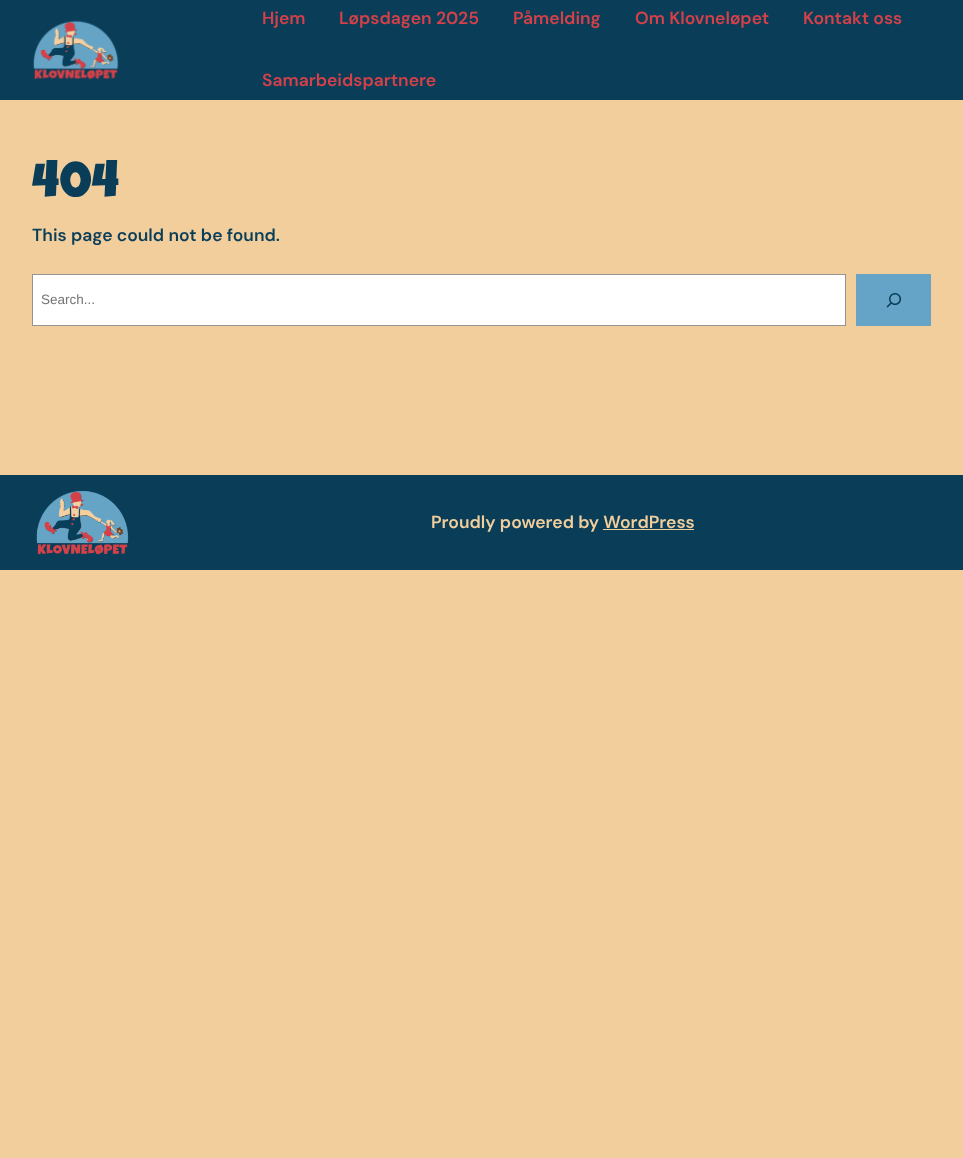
<svg xmlns="http://www.w3.org/2000/svg" xmlns:xlink="http://www.w3.org/1999/xlink" width="963" height="1158" viewBox="0 0 963 1158">
<style>
.cls-1{font:600 17.5px DM Sans;fill:#d64049}
.cls-2{font:51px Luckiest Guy;fill:#0a3e58}
.cls-3{font:600 17.5px DM Sans;fill:#0a3e58}
.cls-4{font:13.5px Liberation Sans;fill:#757575}
.cls-5{font:600 17.5px DM Sans;fill:#f2ce9d}
</style>
<rect width="100%" height="100%" fill="#f2ce9d"/>
<rect fill="#0a3e58" x="0" y="0" width="963" height="100"/>
<image xlink:href="image0.png" x="33" y="20" width="86" height="60"/>
<rect fill="#ffffff" stroke="#949494" x="32.5" y="274.5" width="813" height="51"/>
<rect fill="#66a4c7" x="856" y="274" width="75" height="52"/>
<image xlink:href="image1.png" x="886" y="293" width="16" height="15"/>
<rect fill="#0a3e58" x="0" y="475" width="963" height="95"/>
<image xlink:href="image2.png" x="36" y="491" width="93" height="64"/>
<rect fill="#f2ce9d" x="603" y="529" width="91" height="1"/>
<text class="cls-1" x="262" y="24">Hjem</text>
<text class="cls-1" x="339" y="24">Løpsdagen 2025</text>
<text class="cls-1" x="513" y="24">Påmelding</text>
<text class="cls-1" x="635" y="24">Om Klovneløpet</text>
<text class="cls-1" x="803" y="24">Kontakt oss</text>
<text class="cls-1" x="262" y="86">Samarbeidspartnere</text>
<text class="cls-2" x="32" y="197">404</text>
<text class="cls-3" x="32" y="241">This page could not be found.</text>
<text class="cls-4" x="41" y="304">Search...</text>
<text class="cls-5" x="431" y="528">Proudly powered by WordPress</text>
</svg>
